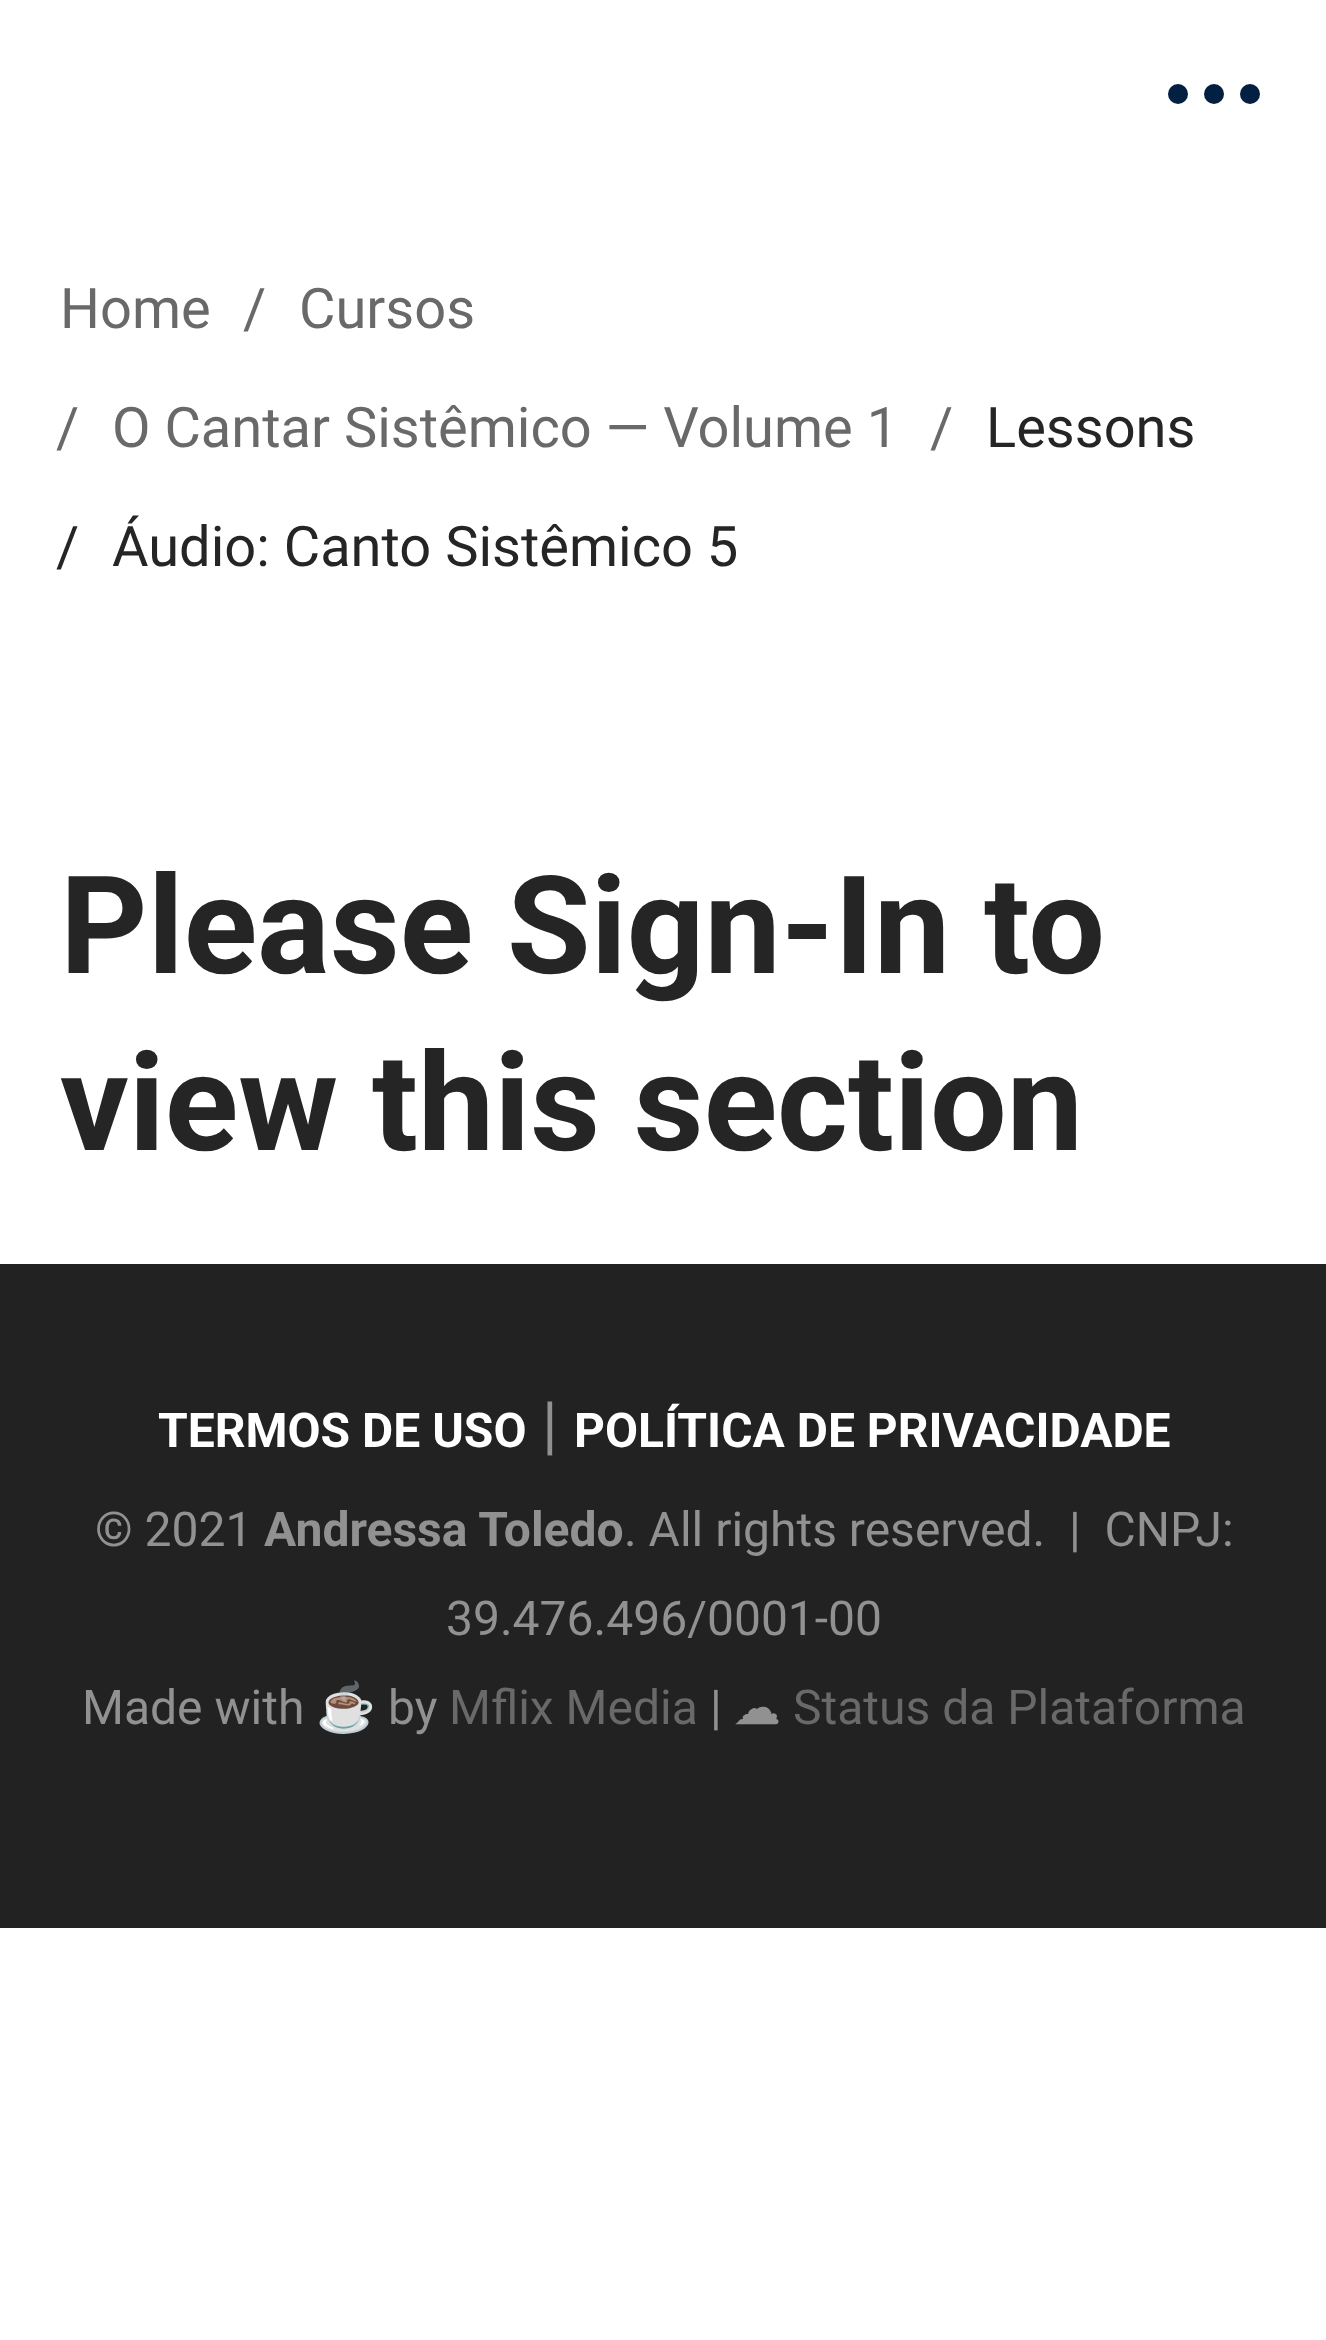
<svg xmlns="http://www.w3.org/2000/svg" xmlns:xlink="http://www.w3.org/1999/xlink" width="1326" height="2340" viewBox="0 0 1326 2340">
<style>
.cls-1{font:56px Roboto;fill:#696969}
.cls-2{font:56px Roboto;fill:#252525}
.cls-3{font:bold 136px Roboto;fill:#252525}
.cls-4{font:bold 48px Roboto;fill:#ffffff}
.cls-5{font:64px Roboto;fill:#919191}
.cls-6{font:48px Roboto;fill:#919191}
.cls-7{font:bold 48px Roboto;fill:#919191}
.cls-8{font:48px Noto Color Emoji;fill:#919191}
.cls-9{font:48px Roboto;fill:#696969}
.cls-10{font:48px DejaVu Sans;fill:#919191}
</style>
<rect width="100%" height="100%" fill="#ffffff"/>
<circle fill="#031f42" cx="1178" cy="94" r="10"/>
<circle fill="#031f42" cx="1214" cy="94" r="10"/>
<circle fill="#031f42" cx="1250" cy="94" r="10"/>
<rect fill="#222222" x="0" y="1264" width="1326" height="664"/>
<text class="cls-1" x="60" y="328">Home</text>
<text class="cls-1" x="243" y="328">/</text>
<text class="cls-1" x="299" y="328">Cursos</text>
<text class="cls-1" x="56" y="447">/</text>
<text class="cls-1" x="112" y="447">O Cantar Sistêmico — Volume 1</text>
<text class="cls-1" x="930" y="447">/</text>
<text class="cls-2" x="986" y="447">Lessons</text>
<text class="cls-2" x="56" y="566">/</text>
<text class="cls-2" x="112" y="566">Áudio: Canto Sistêmico 5</text>
<text class="cls-3"><tspan x="60" y="973">Please Sign-In to</tspan><tspan x="60" y="1150">view this section</tspan></text>
<text class="cls-4" x="158" y="1447">TERMOS DE USO</text>
<text class="cls-5" x="542" y="1447">|</text>
<text class="cls-4" x="574" y="1447">POLÍTICA DE PRIVACIDADE</text>
<text class="cls-6" x="95" y="1546">© 2021</text>
<text class="cls-7" x="264" y="1546">Andressa Toledo</text>
<text class="cls-6" xml:space="preserve" x="624" y="1546">. All rights reserved.  |  CNPJ:</text>
<text class="cls-6" x="446" y="1635">39.476.496/0001-00</text>
<text class="cls-6" x="82" y="1724">Made with</text>
<text class="cls-8" x="316" y="1724">☕</text>
<text class="cls-6" x="388" y="1724">by</text>
<text class="cls-9" x="449" y="1724">Mflix Media</text>
<text class="cls-6" x="710" y="1724">|</text>
<text class="cls-10" x="733" y="1724">☁</text>
<text class="cls-9" x="793" y="1724">Status da Plataforma</text>
</svg>
